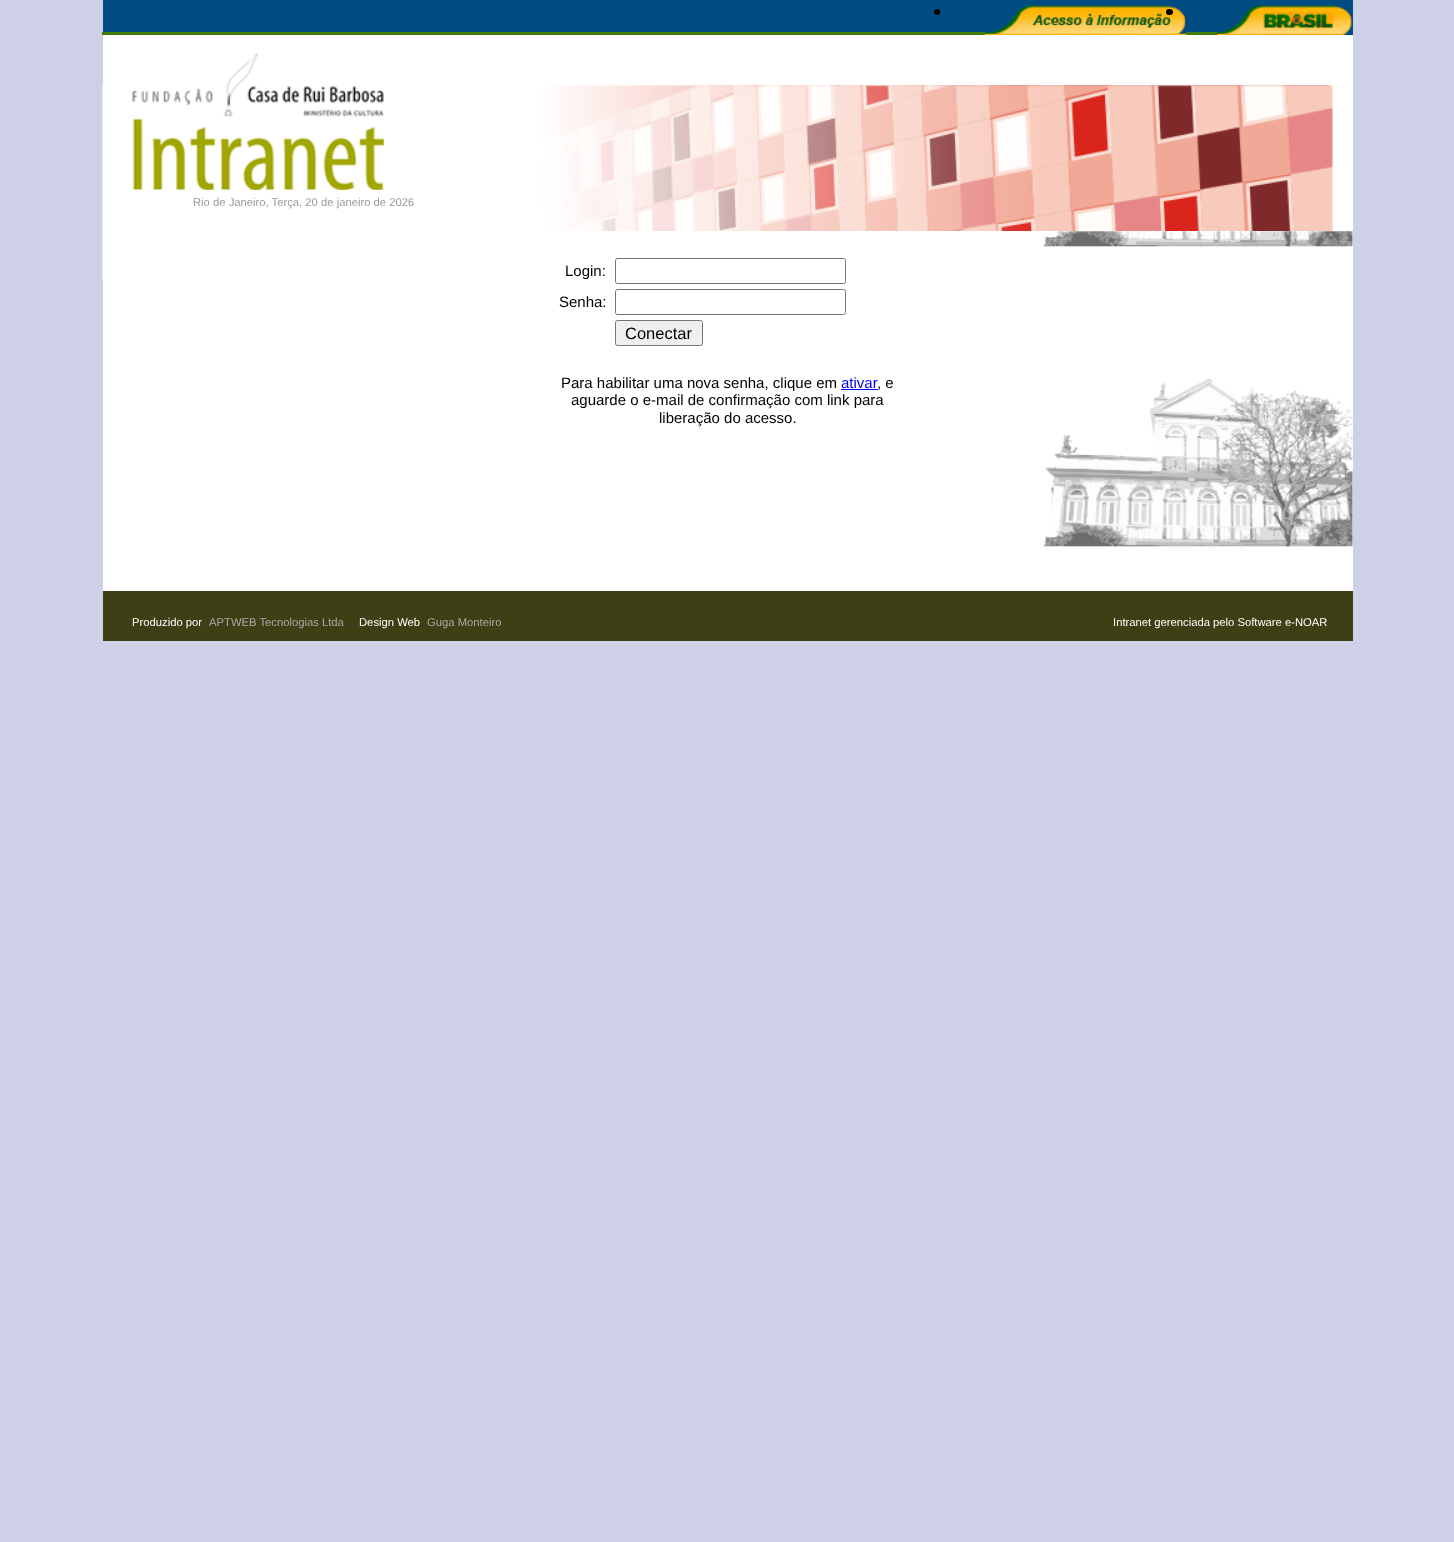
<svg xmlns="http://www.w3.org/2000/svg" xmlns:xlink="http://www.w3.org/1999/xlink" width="1454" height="1542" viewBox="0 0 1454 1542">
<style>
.cls-1{font:11.25px Liberation Sans;fill:#999999}
.cls-2{font:15px Liberation Sans;fill:#000000}
.cls-3{font:16.5px Liberation Sans;fill:#000000}
.cls-4{font:15px Liberation Sans;fill:#0000ee}
.cls-5{font:11.25px Liberation Sans;fill:#ffffff}
.cls-6{font:11.25px Liberation Sans;fill:#aaaaaa}
</style>
<rect width="100%" height="100%" fill="#cdd0e7"/>
<rect fill="#004b82" x="103" y="0" width="1115" height="32"/>
<rect fill="#3f7d07" x="102" y="32" width="1116" height="3"/>
<circle fill="#000000" cx="937" cy="12" r="3"/>
<rect fill="#004b82" x="985" y="32" width="201" height="2"/>
<image xlink:href="image0.png" x="985" y="5" width="202" height="30"/>
<rect fill="#000000" x="1166" y="9" width="7" height="6" rx="3"/>
<rect fill="#004b82" x="1218" y="0" width="135" height="35"/>
<image xlink:href="image1.png" x="1217" y="5" width="136" height="30"/>
<rect fill="#ffffff" x="103" y="35" width="1250" height="196"/>
<image xlink:href="image2.png" x="102" y="85" width="1231" height="195"/>
<image xlink:href="image3.png" x="131" y="53" width="253" height="137"/>
<rect fill="#ffffff" x="103" y="231" width="1250" height="360"/>
<image xlink:href="image4.png" x="1043" y="231" width="310" height="16"/>
<image xlink:href="image5.png" x="1043" y="378" width="310" height="169"/>
<rect fill="none" stroke="#767676" x="615.5" y="258.5" width="230" height="25" rx="2"/>
<rect fill="none" stroke="#767676" x="615.5" y="289.5" width="230" height="25" rx="2"/>
<rect fill="#efefef" stroke="#767676" x="615.5" y="320.5" width="87" height="25" rx="2"/>
<rect fill="#0000ee" x="841" y="389" width="37" height="1"/>
<rect fill="#3e3f14" x="103" y="591" width="1250" height="50"/>
<text class="cls-1" x="193" y="206">Rio de Janeiro, Terça, 20 de janeiro de 2026</text>
<text class="cls-2" x="565" y="276">Login:</text>
<text class="cls-2" x="559" y="307">Senha:</text>
<text class="cls-3" x="625" y="339">Conectar</text>
<text class="cls-2" x="561" y="388">Para habilitar uma nova senha, clique em</text>
<text class="cls-4" x="841" y="388">ativar</text>
<text class="cls-2" x="877" y="388">, e</text>
<text class="cls-2" x="571" y="405">aguarde o e-mail de confirmação com link para</text>
<text class="cls-2" x="659" y="423">liberação do acesso.</text>
<text class="cls-5" x="132" y="626">Produzido por</text>
<text class="cls-6" x="209" y="626">APTWEB Tecnologias Ltda</text>
<text class="cls-5" x="359" y="626">Design Web</text>
<text class="cls-6" x="427" y="626">Guga Monteiro</text>
<text class="cls-5" x="1113" y="626">Intranet gerenciada pelo Software e-NOAR</text>
</svg>
